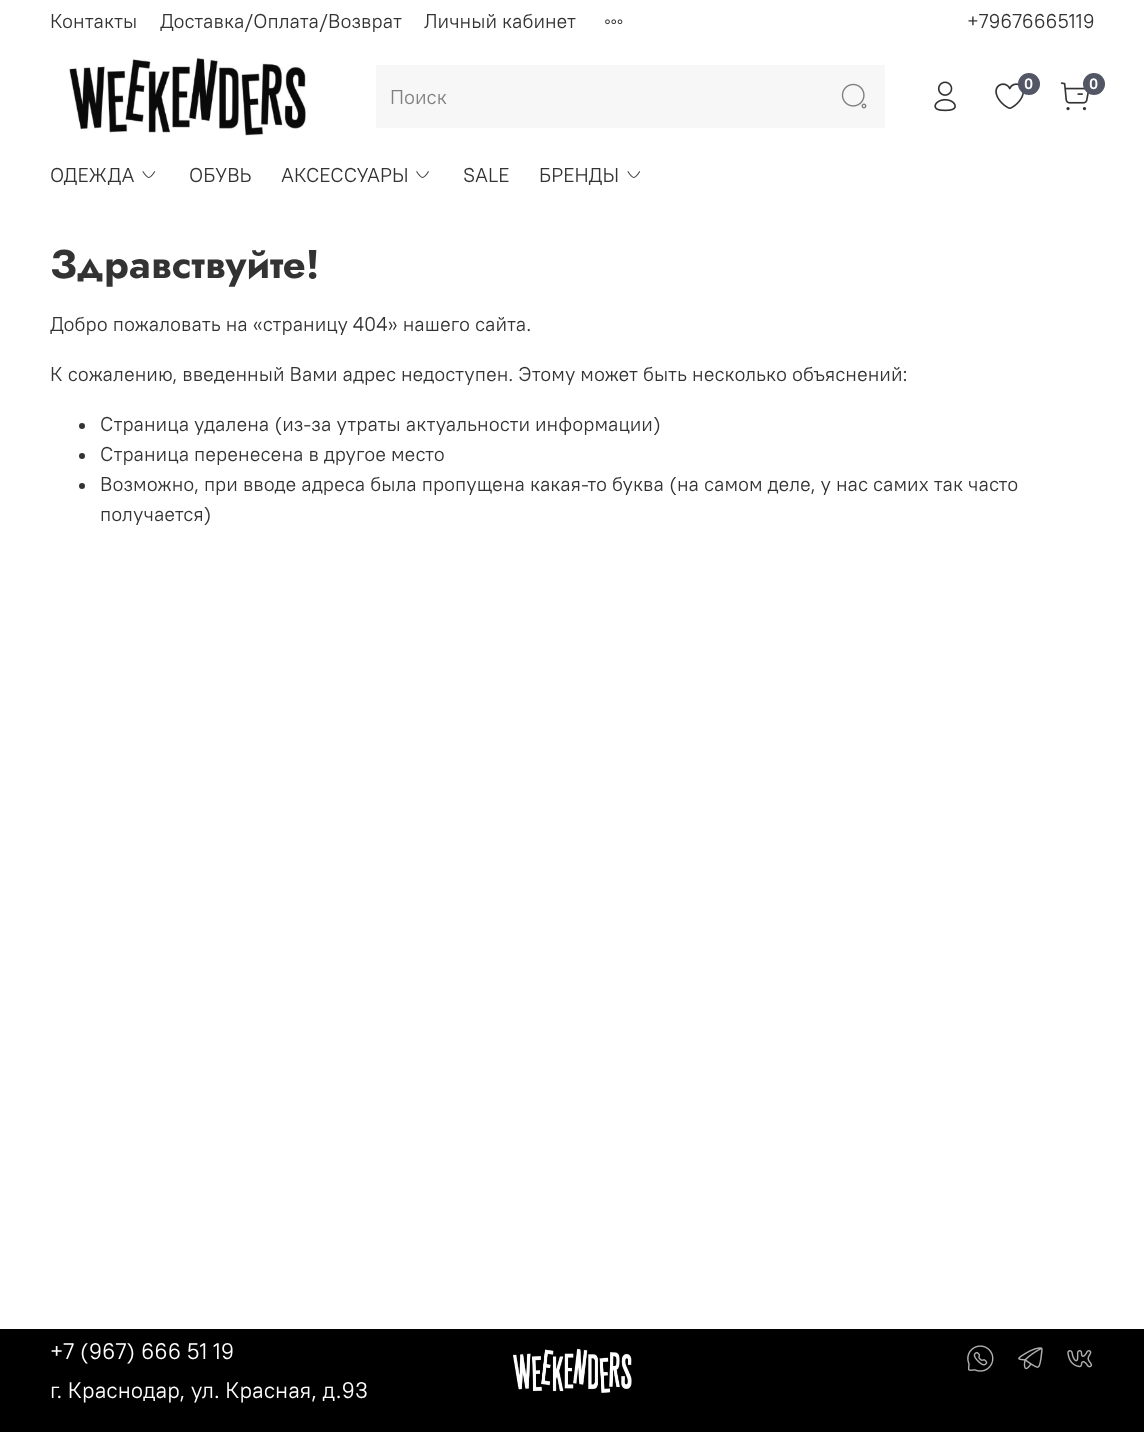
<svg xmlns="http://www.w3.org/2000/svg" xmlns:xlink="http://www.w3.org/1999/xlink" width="1144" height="1432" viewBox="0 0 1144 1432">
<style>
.cls-1{font:20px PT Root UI;fill:#333333}
.cls-2{font:bold 15px PT Root UI;fill:#ffffff}
.cls-3{font:20px PT Root UI;fill:#808080}
.cls-4{font:bold 40px Jost;fill:#333333}
.cls-5{font:22.5px PT Root UI;fill:#ffffff}
</style>
<rect width="100%" height="100%" fill="#ffffff"/>
<image xlink:href="image0.png" x="605" y="19" width="18" height="6"/>
<image xlink:href="image1.png" x="69" y="57" width="238" height="79"/>
<image xlink:href="image2.png" x="934" y="81" width="22" height="31"/>
<image xlink:href="image3.png" x="995" y="83" width="29" height="26"/>
<circle fill="#525665" cx="1029" cy="84" r="11"/>
<image xlink:href="image4.png" x="1060" y="82" width="29" height="29"/>
<circle fill="#525665" cx="1094" cy="84" r="11"/>
<rect fill="#f7f7f7" x="376" y="65" width="509" height="63"/>
<image xlink:href="image5.png" x="841" y="83" width="26" height="26"/>
<image xlink:href="image6.png" x="142" y="171" width="14" height="7"/>
<image xlink:href="image7.png" x="416" y="171" width="13" height="7"/>
<image xlink:href="image6.png" x="627" y="171" width="14" height="7"/>
<circle fill="#333333" cx="82" cy="426" r="3"/>
<circle fill="#333333" cx="82" cy="456" r="3"/>
<circle fill="#333333" cx="82" cy="486" r="3"/>
<rect fill="#000000" x="0" y="1329" width="1144" height="103"/>
<image xlink:href="image8.png" x="513" y="1348" width="119" height="45"/>
<image xlink:href="image9.png" x="967" y="1345" width="27" height="27"/>
<image xlink:href="image10.png" x="1018" y="1347" width="25" height="23"/>
<image xlink:href="image11.png" x="1067" y="1350" width="26" height="18"/>
<text class="cls-1" x="50" y="28">Контакты</text>
<text class="cls-1" x="160" y="28">Доставка/Оплата/Возврат</text>
<text class="cls-1" x="424" y="28">Личный кабинет</text>
<text class="cls-1" x="967" y="28">+79676665119</text>
<text class="cls-2" x="1024" y="89">0</text>
<text class="cls-2" x="1089" y="89">0</text>
<text class="cls-3" x="390" y="104">Поиск</text>
<text class="cls-1" x="50" y="182">ОДЕЖДА</text>
<text class="cls-1" x="189" y="182">ОБУВЬ</text>
<text class="cls-1" x="281" y="182">АКСЕССУАРЫ</text>
<text class="cls-1" x="463" y="182">SALE</text>
<text class="cls-1" x="539" y="182">БРЕНДЫ</text>
<text class="cls-4" x="50" y="278">Здравствуйте!</text>
<text class="cls-1" x="50" y="331">Добро пожаловать на «страницу 404» нашего сайта.</text>
<text class="cls-1" x="50" y="381">К сожалению, введенный Вами адрес недоступен. Этому может быть несколько объяснений:</text>
<text class="cls-1"><tspan x="100" y="431">Страница удалена (из-за утраты актуальности информации)</tspan><tspan x="100" y="461">Страница перенесена в другое место</tspan><tspan x="100" y="491">Возможно, при вводе адреса была пропущена какая-то буква (на самом деле, у нас самих так часто</tspan><tspan x="100" y="521">получается)</tspan></text>
<text class="cls-5"><tspan x="50" y="1359">+7 (967) 666 51 19</tspan><tspan x="50" y="1398">г. Краснодар, ул. Красная, д.93</tspan></text>
</svg>
